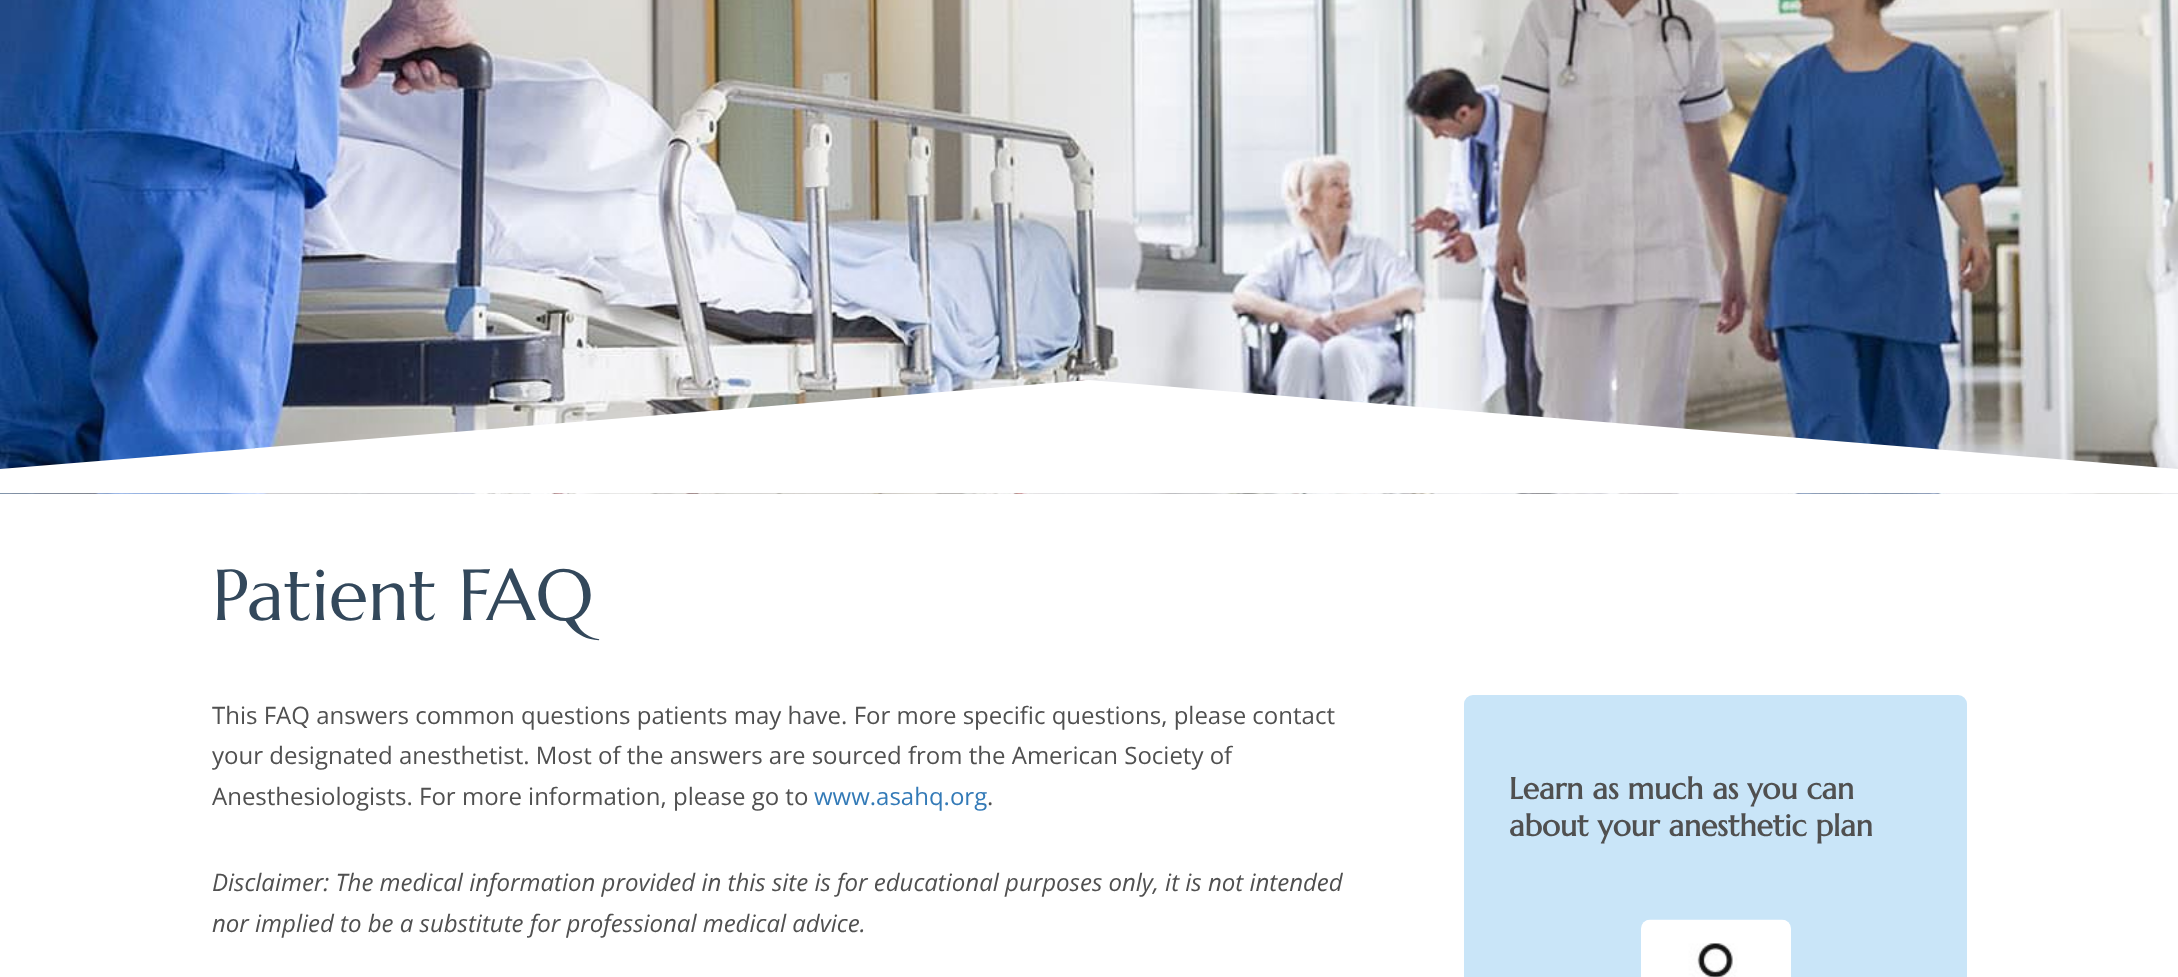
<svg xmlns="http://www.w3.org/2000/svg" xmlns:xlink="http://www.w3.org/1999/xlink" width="2178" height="977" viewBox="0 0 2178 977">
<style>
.cls-1{font:72px Marcellus;fill:#33485b}
.cls-2{font:24px Open Sans;fill:#505050}
.cls-3{font:24px Open Sans;fill:#337ab7}
.cls-4{font:italic 24px Open Sans;fill:#505050}
.cls-5{font:bold 30px Marcellus;fill:#505050}
</style>
<rect width="100%" height="100%" fill="#ffffff"/>
<image xlink:href="image0.png" x="0" y="0" width="2178" height="494"/>
<path fill="#ffffff" fill-rule="evenodd" d="M1089 380L-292 493H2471Z"/>
<rect fill="#c9e5f8" x="1464" y="695" width="503" height="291" rx="9"/>
<image xlink:href="image1.png" x="1641" y="919" width="150" height="58"/>
<text class="cls-1" x="212" y="620">Patient FAQ</text>
<text class="cls-2"><tspan x="212" y="724">This FAQ answers common questions patients may have. For more specific questions, please contact</tspan><tspan x="212" y="764">your designated anesthetist. Most of the answers are sourced from the American Society of</tspan><tspan x="212" y="805">Anesthesiologists. For more information, please go to</tspan></text>
<text class="cls-3" x="814" y="805">www.asahq.org</text>
<text class="cls-2" x="987" y="805">.</text>
<text class="cls-4"><tspan x="212" y="891">Disclaimer: The medical information provided in this site is for educational purposes only, it is not intended</tspan><tspan x="212" y="932">nor implied to be a substitute for professional medical advice.</tspan></text>
<text class="cls-5"><tspan x="1509" y="799">Learn as much as you can</tspan><tspan x="1509" y="836">about your anesthetic plan</tspan></text>
</svg>
